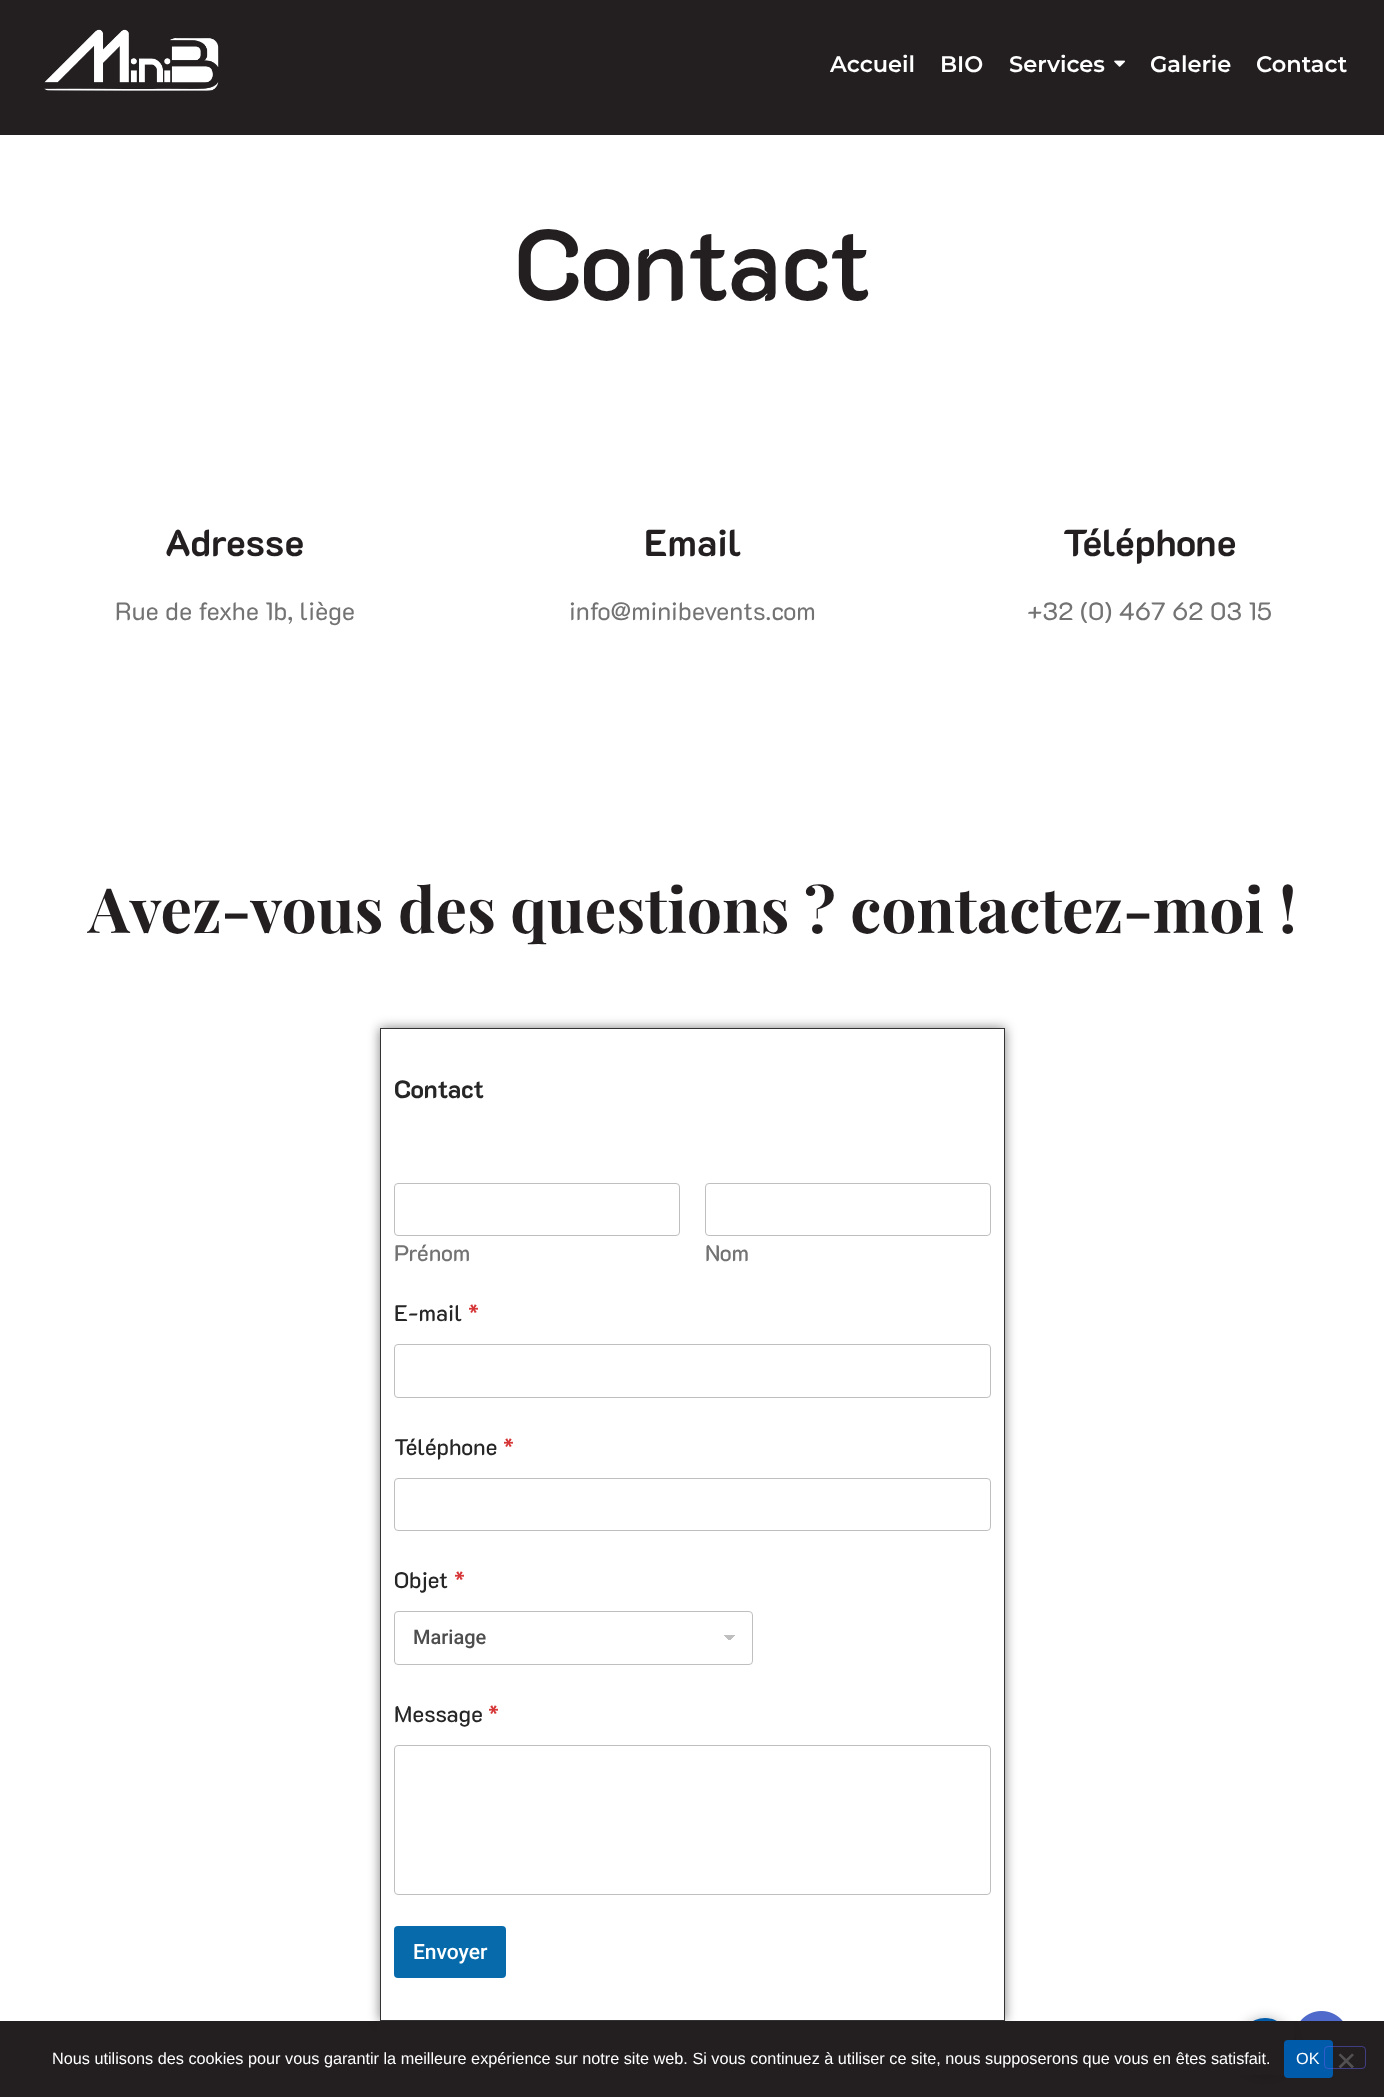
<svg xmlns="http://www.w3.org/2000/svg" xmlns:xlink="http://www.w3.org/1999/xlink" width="1384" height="2097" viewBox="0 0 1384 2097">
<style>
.cls-1{font:600 22.5px Montserrat;fill:#ffffff}
.cls-2{font:600 100px 'K2D';fill:#231f21}
.cls-3{font:bold 37.5px 'K2D';fill:#231f21}
.cls-4{font:25px 'K2D';fill:#737373}
.cls-5{font:bold 62.5px Playfair Display;fill:#231f21}
.cls-6{font:bold 25px 'K2D';fill:#262626}
.cls-7{font:500 22.5px 'K2D';fill:#737373}
.cls-8{font:500 22.5px 'K2D';fill:#262626}
.cls-9{font:22.5px 'K2D';fill:#d63637}
.cls-10{font:500 20px Roboto;fill:#4d4d4d}
.cls-11{font:500 21px Roboto;fill:#ffffff}
.cls-12{font:16.25px Liberation Sans;fill:#ffffff}
</style>
<defs>
<clipPath id="clip1"><path d="M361 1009H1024V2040H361ZM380 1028H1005V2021H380Z" clip-rule="evenodd"/></clipPath>
<linearGradient id="g1" gradientUnits="userSpaceOnUse" x1="730" y1="1635" x2="736" y2="1641"><stop offset="0.5" stop-color="#bfbfbf"/><stop offset="0.5" stop-color="#ffffff"/></linearGradient>
<linearGradient id="g2" gradientUnits="userSpaceOnUse" x1="724" y1="1641" x2="730" y2="1635"><stop offset="0.5" stop-color="#ffffff"/><stop offset="0.5" stop-color="#bfbfbf"/></linearGradient>
</defs>
<rect width="100%" height="100%" fill="#231f21"/>
<image xlink:href="image0.png" x="44" y="29" width="175" height="62"/>
<image xlink:href="image1.png" x="1114" y="60" width="11" height="7"/>
<rect fill="#ffffff" x="0" y="135" width="1384" height="1886"/>
<g clip-path="url(#clip1)">
<rect fill="#000000" fill-opacity="0.5" filter="blur(6px)" x="380" y="1028" width="625" height="993"/>
</g>
<rect fill="none" stroke="#333333" x="380.5" y="1028.5" width="624" height="992"/>
<rect fill="none" stroke="#bfbfbf" x="394.5" y="1183.5" width="285" height="52" rx="3.5"/>
<rect fill="none" stroke="#bfbfbf" x="705.5" y="1183.5" width="285" height="52" rx="3.5"/>
<rect fill="none" stroke="#bfbfbf" x="394.5" y="1344.5" width="596" height="53" rx="3.5"/>
<rect fill="none" stroke="#bfbfbf" x="394.5" y="1478.5" width="596" height="52" rx="3.5"/>
<rect fill="url(#g1)" x="730" y="1635" width="6" height="5"/>
<rect fill="url(#g2)" x="724" y="1635" width="6" height="5"/>
<rect fill="none" stroke="#bfbfbf" x="394.5" y="1611.5" width="358" height="53" rx="3.5"/>
<rect fill="none" stroke="#bfbfbf" x="394.5" y="1745.5" width="596" height="149" rx="3.5"/>
<rect fill="#066aab" x="394" y="1926" width="112" height="52" rx="4"/>
<rect fill="#000000" fill-opacity="0.25" filter="blur(6px)" x="1239" y="2018" width="52" height="55" rx="26"/>
<rect fill="#005baa" x="1239" y="2018" width="52" height="55" rx="26"/>
<image xlink:href="image2.png" x="1300" y="2011" width="43" height="10"/>
<rect fill="#231f21" x="377" y="2021" width="917" height="54"/>
<rect fill="#005baa" x="1284" y="2040" width="49" height="38" rx="4"/>
<rect fill="none" stroke="#605be5" stroke-opacity="0.5" x="1324.5" y="2046.5" width="41" height="22" rx="3.5"/>
<path fill="#525051" d="M1352 2053.5L1354 2055L1340.5 2068.5L1338.5 2066.5Z"/>
<path fill="#525051" d="M1338.5 2055L1340.5 2053.5L1354 2066.5L1352 2068.5Z"/>
<text class="cls-1" x="830" y="72">Accueil</text>
<text class="cls-1" x="940" y="72">BIO</text>
<text class="cls-1" x="1009" y="72">Services</text>
<text class="cls-1" x="1150" y="72">Galerie</text>
<text class="cls-1" x="1256" y="72">Contact</text>
<text class="cls-2" x="514" y="300">Contact</text>
<text class="cls-3" x="165" y="556">Adresse</text>
<text class="cls-4" x="115" y="620">Rue de fexhe 1b, liège</text>
<text class="cls-3" x="644" y="556">Email</text>
<text class="cls-4" x="569" y="620">info@minibevents.com</text>
<text class="cls-3" x="1063" y="556">Téléphone</text>
<text class="cls-4" x="1027" y="620">+32 (0) 467 62 03 15</text>
<text class="cls-5" x="88" y="933">Avez-vous des questions ? contactez-moi !</text>
<text class="cls-6" x="394" y="1098">Contact</text>
<text class="cls-7" x="394" y="1261">Prénom</text>
<text class="cls-7" x="705" y="1261">Nom</text>
<text class="cls-8" x="394" y="1321">E-mail</text>
<text class="cls-9" x="468" y="1321">*</text>
<text class="cls-8" x="394" y="1455">Téléphone</text>
<text class="cls-9" x="503" y="1455">*</text>
<text class="cls-8" x="394" y="1588">Objet</text>
<text class="cls-9" x="454" y="1588">*</text>
<text class="cls-10" x="413" y="1644">Mariage</text>
<text class="cls-8" x="394" y="1722">Message</text>
<text class="cls-9" x="488" y="1722">*</text>
<text class="cls-11" x="413" y="1959">Envoyer</text>
<text class="cls-12" x="52" y="2064">Nous utilisons des cookies pour vous garantir la meilleure expérience sur notre site web. Si vous continuez à utiliser ce site, nous supposerons que vous en êtes satisfait.</text>
<text class="cls-12" x="1296" y="2064">OK</text>
</svg>
